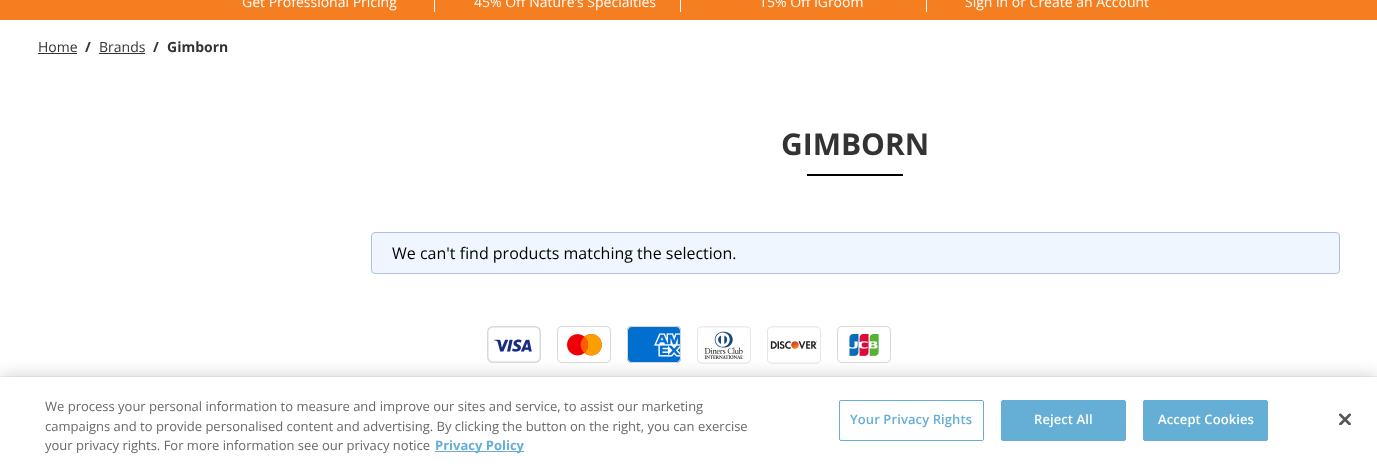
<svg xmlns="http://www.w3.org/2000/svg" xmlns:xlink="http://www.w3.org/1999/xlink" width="1377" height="466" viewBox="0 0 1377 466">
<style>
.cls-1{font:14px Open Sans;fill:#ffffff}
.cls-2{font:14px Open Sans;fill:#333333}
.cls-3{font:bold 14px Open Sans;fill:#333333}
.cls-4{font:bold 30px Open Sans;fill:#333333}
.cls-5{font:16px Open Sans;fill:#000000}
.cls-6{font:13px Open Sans;fill:#696969}
.cls-7{font:bold 13px Open Sans;fill:#65afd6}
.cls-8{font:600 13px Open Sans;letter-spacing:0.1px;fill:#65afd6}
.cls-9{font:600 13px Open Sans;letter-spacing:0.1px;fill:#ffffff}
</style>
<rect width="100%" height="100%" fill="#ffffff"/>
<rect fill="#f57f20" x="0" y="0" width="1377" height="20"/>
<rect fill="#ffffff" x="434" y="0" width="1" height="12"/>
<rect fill="#ffffff" x="680" y="0" width="1" height="12"/>
<rect fill="#ffffff" x="926" y="0" width="1" height="12"/>
<rect fill="#333333" x="38" y="53" width="39" height="1"/>
<rect fill="#333333" x="99" y="53" width="46" height="1"/>
<rect fill="#000000" x="807" y="174" width="96" height="2"/>
<rect fill="#eff6ff" stroke="#abc2de" x="371.5" y="232.5" width="968" height="41" rx="3.5"/>
<image xlink:href="image0.png" x="487" y="326" width="54" height="37"/>
<image xlink:href="image1.png" x="557" y="326" width="54" height="37"/>
<image xlink:href="image2.png" x="627" y="326" width="54" height="37"/>
<image xlink:href="image3.png" x="697" y="326" width="54" height="38"/>
<image xlink:href="image4.png" x="767" y="326" width="54" height="38"/>
<image xlink:href="image5.png" x="837" y="326" width="54" height="37"/>
<rect fill="#f5f5f5" x="0" y="376" width="1377" height="1"/>
<rect fill="#000000" fill-opacity="0.2" filter="blur(9px)" x="0" y="377" width="1377" height="89"/>
<rect fill="#ffffff" x="0" y="377" width="1377" height="89"/>
<rect fill="#65afd6" x="435" y="451" width="89" height="1"/>
<rect fill="none" stroke="#65afd6" x="839.5" y="400.5" width="144" height="40" rx="1.5"/>
<rect fill="#65afd6" stroke="#65afd6" x="1001.5" y="400.5" width="124" height="40" rx="1.5"/>
<rect fill="#65afd6" stroke="#65afd6" x="1143.5" y="400.5" width="124" height="40" rx="1.5"/>
<image xlink:href="image6.png" x="1339" y="413" width="12" height="12"/>
<text class="cls-1" x="242" y="7">Get Professional Pricing</text>
<text class="cls-1" x="474" y="7">45% Off Nature’s Specialties</text>
<text class="cls-1" x="759" y="7">15% Off iGroom</text>
<text class="cls-1" x="965" y="7">Sign in or Create an Account</text>
<text class="cls-2" x="38" y="52">Home</text>
<text class="cls-3" x="85" y="52">/</text>
<text class="cls-2" x="99" y="52">Brands</text>
<text class="cls-3" x="153" y="52">/</text>
<text class="cls-3" x="167" y="52">Gimborn</text>
<text class="cls-4" x="781" y="155">GIMBORN</text>
<text class="cls-5" x="392" y="259">We can't find products matching the selection.</text>
<text class="cls-6"><tspan x="45" y="411">We process your personal information to measure and improve our sites and service, to assist our marketing</tspan><tspan x="45" y="431">campaigns and to provide personalised content and advertising. By clicking the button on the right, you can exercise</tspan><tspan x="45" y="450">your privacy rights. For more information see our privacy notice</tspan></text>
<text class="cls-7" x="435" y="450">Privacy Policy</text>
<text class="cls-8" x="850" y="424">Your Privacy Rights</text>
<text class="cls-9" x="1034" y="424">Reject All</text>
<text class="cls-9" x="1158" y="424">Accept Cookies</text>
</svg>
